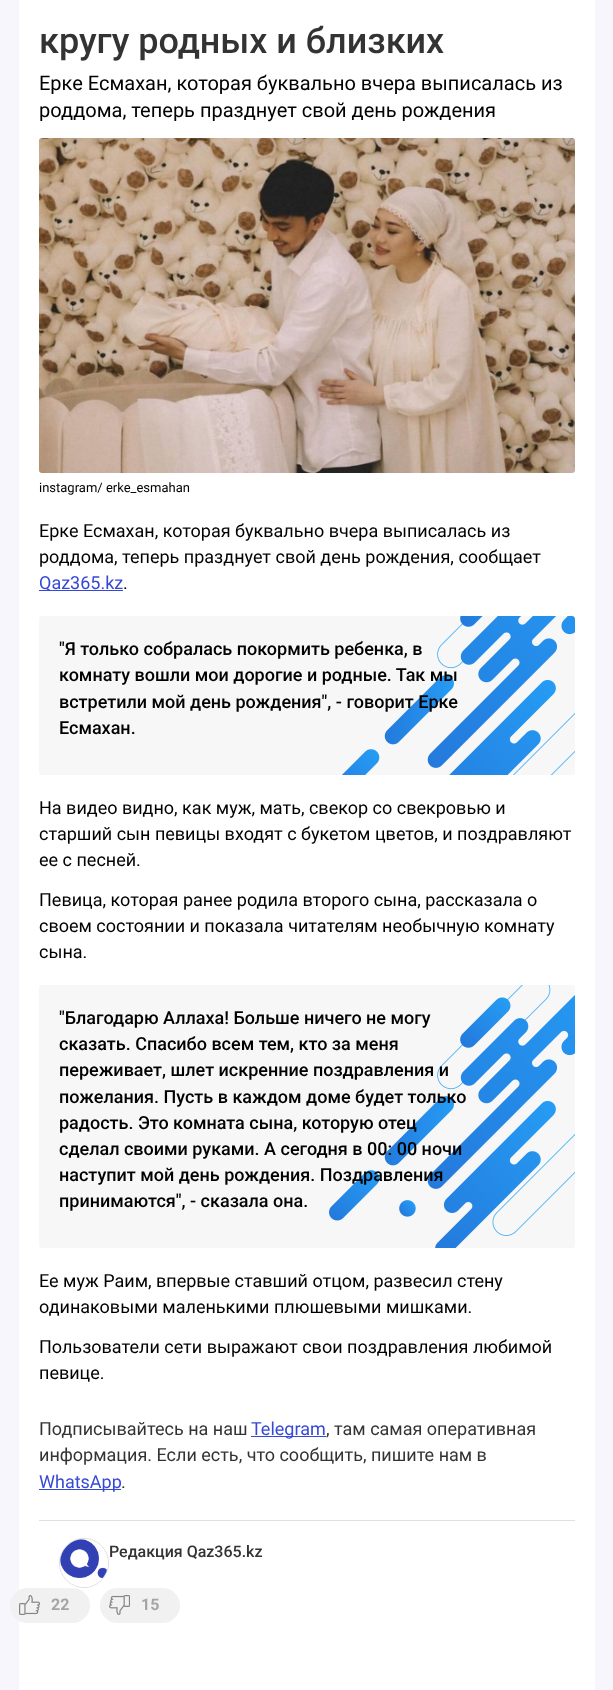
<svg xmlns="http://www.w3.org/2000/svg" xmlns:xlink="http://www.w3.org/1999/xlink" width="613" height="1690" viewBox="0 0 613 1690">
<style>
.cls-1{font:500 36px Roboto;fill:#333333}
.cls-2{font:20px Roboto;fill:#000000}
.cls-3{font:13px Roboto;fill:#000000}
.cls-4{font:18px Roboto;fill:#000000}
.cls-5{font:18px Roboto;fill:#3649d6}
.cls-6{font:500 18px Roboto;fill:#000000}
.cls-7{font:18px Roboto;fill:#333333}
.cls-8{font:500 16px Roboto;fill:#333333}
.cls-9{font:bold 16px Roboto;fill:#a5a5a5}
</style>
<rect width="100%" height="100%" fill="#f6f6fc"/>
<rect fill="#ffffff" x="19" y="0" width="576" height="1690"/>
<image xlink:href="image0.png" x="39" y="138" width="536" height="335"/>
<rect fill="#3649d6" x="39" y="590" width="84" height="1"/>
<rect fill="#f7f7f7" x="39" y="616" width="536" height="159" rx="3"/>
<image xlink:href="image1.png" x="342" y="616" width="233" height="159"/>
<rect fill="#f7f7f7" x="39" y="985" width="536" height="263" rx="3"/>
<image xlink:href="image2.png" x="329" y="985" width="246" height="263"/>
<rect fill="#3649d6" x="251" y="1436" width="75" height="1"/>
<rect fill="#3649d6" x="39" y="1489" width="82" height="1"/>
<rect fill="#e0e0e0" x="39" y="1520" width="536" height="1"/>
<circle fill="none" stroke="#dddddd" cx="84" cy="1563" r="24.5"/>
<image xlink:href="image3.png" x="60" y="1539" width="48" height="48"/>
<rect fill="#f1f1f1" x="10" y="1588" width="80" height="35" rx="17.5"/>
<image xlink:href="image4.png" x="19" y="1595" width="21" height="20"/>
<rect fill="#f1f1f1" x="100" y="1588" width="80" height="35" rx="17.5"/>
<image xlink:href="image5.png" x="109" y="1595" width="21" height="20"/>
<text class="cls-1" x="39" y="53">кругу родных и близких</text>
<text class="cls-2"><tspan x="39" y="90">Ерке Есмахан, которая буквально вчера выписалась из</tspan><tspan x="39" y="117">роддома, теперь празднует свой день рождения</tspan></text>
<text class="cls-3" x="39" y="492">instagram/ erke_esmahan</text>
<text class="cls-4"><tspan x="39" y="537">Ерке Есмахан, которая буквально вчера выписалась из</tspan><tspan x="39" y="563">роддома, теперь празднует свой день рождения, сообщает</tspan></text>
<text class="cls-5" x="39" y="589">Qaz365.kz</text>
<text class="cls-4" x="123" y="589">.</text>
<text class="cls-6"><tspan x="59" y="655">"Я только собралась покормить ребенка, в</tspan><tspan x="59" y="681">комнату вошли мои дорогие и родные. Так мы</tspan><tspan x="59" y="708">встретили мой день рождения", - говорит Ерке</tspan><tspan x="59" y="734">Есмахан.</tspan></text>
<text class="cls-4"><tspan x="39" y="814">На видео видно, как муж, мать, свекор со свекровью и</tspan><tspan x="39" y="840">старший сын певицы входят с букетом цветов, и поздравляют</tspan><tspan x="39" y="866">ее с песней.</tspan></text>
<text class="cls-4"><tspan x="39" y="906">Певица, которая ранее родила второго сына, рассказала о</tspan><tspan x="39" y="932">своем состоянии и показала читателям необычную комнату</tspan><tspan x="39" y="958">сына.</tspan></text>
<text class="cls-6"><tspan x="59" y="1024">"Благодарю Аллаха! Больше ничего не могу</tspan><tspan x="59" y="1050">сказать. Спасибо всем тем, кто за меня</tspan><tspan x="59" y="1076">переживает, шлет искренние поздравления и</tspan><tspan x="59" y="1103">пожелания. Пусть в каждом доме будет только</tspan><tspan x="59" y="1129">радость. Это комната сына, которую отец</tspan><tspan x="59" y="1155">сделал своими руками. А сегодня в 00: 00 ночи</tspan><tspan x="59" y="1181">наступит мой день рождения. Поздравления</tspan><tspan x="59" y="1207">принимаются", - сказала она.</tspan></text>
<text class="cls-4"><tspan x="39" y="1287">Ее муж Раим, впервые ставший отцом, развесил стену</tspan><tspan x="39" y="1313">одинаковыми маленькими плюшевыми мишками.</tspan></text>
<text class="cls-4"><tspan x="39" y="1353">Пользователи сети выражают свои поздравления любимой</tspan><tspan x="39" y="1379">певице.</tspan></text>
<text class="cls-7" x="39" y="1435">Подписывайтесь на наш</text>
<text class="cls-5" x="251" y="1435">Telegram</text>
<text class="cls-7" x="326" y="1435">, там самая оперативная</text>
<text class="cls-7" x="39" y="1461">информация. Если есть, что сообщить, пишите нам в</text>
<text class="cls-5" x="39" y="1488">WhatsApp</text>
<text class="cls-7" x="121" y="1488">.</text>
<text class="cls-8" x="109" y="1557">Редакция Qaz365.kz</text>
<text class="cls-9" x="51" y="1610">22</text>
<text class="cls-9" x="141" y="1610">15</text>
</svg>
